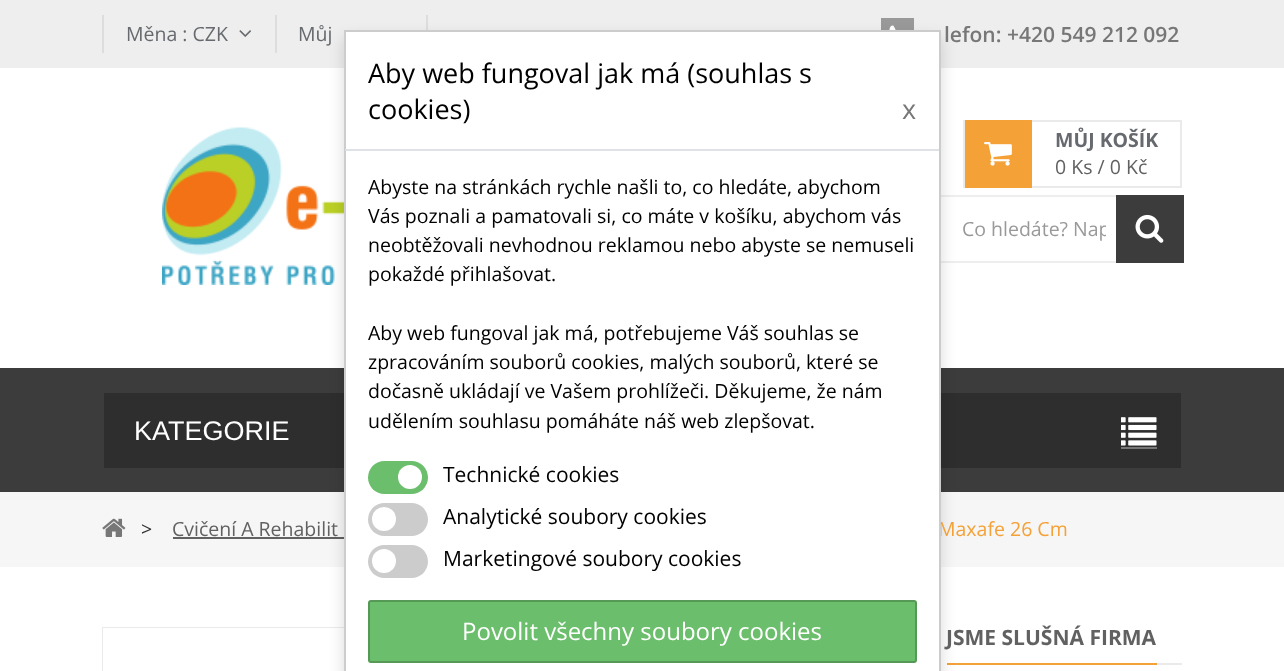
<svg xmlns="http://www.w3.org/2000/svg" xmlns:xlink="http://www.w3.org/1999/xlink" width="1284" height="671" viewBox="0 0 1284 671">
<style>
.cls-1{font:19.5px Open Sans;fill:#666a6e}
.cls-2{font:600 21px Open Sans;fill:#777777}
.cls-3{font:bold 19.5px Open Sans;fill:#666a6e}
.cls-4{font:19.5px Open Sans;fill:#616161}
.cls-5{font:19.5px Open Sans;fill:#999999}
.cls-6{font:27px Liberation Sans;fill:#ffffff}
.cls-7{font:19.5px Open Sans;fill:#333333}
.cls-8{font:19.5px Open Sans;fill:#f4a137}
.cls-9{font:bold 21px Open Sans;fill:#616161}
.cls-10{font:27px Open Sans;fill:#000000}
.cls-11{font:27px Open Sans;fill:#777777}
.cls-12{font:19.5px Open Sans;fill:#000000}
.cls-13{font:21px Open Sans;fill:#000000}
.cls-14{font:24px Open Sans;fill:#ffffff}
</style>
<defs>
<clipPath id="clip1"><rect x="962" y="216" width="144" height="27"/></clipPath>
</defs>
<rect width="100%" height="100%" fill="#ffffff"/>
<rect fill="#eeeeee" x="0" y="0" width="1284" height="68"/>
<rect fill="#dddddd" x="102" y="15" width="2" height="38"/>
<image xlink:href="image0.png" x="239" y="30" width="12" height="7"/>
<rect fill="#dddddd" x="426" y="15" width="2" height="15"/>
<rect fill="#dddddd" x="275" y="15" width="2" height="38"/>
<rect fill="#999999" x="881" y="18" width="33" height="12"/>
<image xlink:href="image1.png" x="889" y="25" width="7" height="5"/>
<image xlink:href="image2.png" x="162" y="127" width="182" height="158"/>
<rect fill="none" stroke="#eaeaea" stroke-width="2" x="964" y="121" width="217" height="66"/>
<rect fill="#f4a137" x="965" y="120" width="67" height="68"/>
<image xlink:href="image3.png" x="984" y="142" width="28" height="24"/>
<rect fill="none" stroke="#eeeeee" stroke-width="2" x="931" y="196" width="250" height="66"/>
<rect fill="#3c3c3c" x="1116" y="195" width="68" height="68"/>
<image xlink:href="image4.png" x="1135" y="214" width="29" height="29"/>
<rect fill="#3c3c3c" x="0" y="368" width="1284" height="124"/>
<rect fill="#2f2e2e" x="104" y="393" width="1077" height="75"/>
<image xlink:href="image5.png" x="1121" y="417" width="36" height="29"/>
<rect fill="#777777" x="1121" y="447" width="36" height="2"/>
<rect fill="#f6f6f6" x="0" y="492" width="1284" height="75"/>
<image xlink:href="image6.png" x="102" y="518" width="24" height="19"/>
<rect fill="#616161" x="173" y="537" width="171" height="2"/>
<rect fill="none" stroke="#eaeaea" stroke-width="2" x="103" y="628" width="375" height="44"/>
<rect fill="#ffffff" x="103" y="628" width="241" height="43"/>
<rect fill="#eaeaea" x="1157" y="663" width="25" height="2"/>
<rect fill="#f4a137" x="947" y="663" width="210" height="2"/>
<rect fill="#000000" fill-opacity="0.15" filter="blur(7.5px)" x="344" y="38" width="597" height="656"/>
<text class="cls-1" x="126" y="41">Měna : CZK</text>
<text class="cls-1" x="298" y="41">Můj</text>
<text class="cls-2" x="944" y="42">lefon: +420 549 212 092</text>
<text class="cls-3" x="1055" y="147">MŮJ KOŠÍK</text>
<text class="cls-4" x="1055" y="174">0 Ks / 0 Kč</text>
<g clip-path="url(#clip1)">
<text class="cls-5" x="962" y="236">Co hledáte? Nap</text>
</g>
<text class="cls-6" x="134" y="440">KATEGORIE</text>
<text class="cls-7" x="141" y="536">&gt;</text>
<text class="cls-4" x="172" y="536">Cvičení A Rehabilit</text>
<text class="cls-8" x="938" y="536">Maxafe 26 Cm</text>
<text class="cls-9" x="946" y="645">JSME SLUŠNÁ FIRMA</text>
<rect fill="#ffffff" stroke="#cccccc" stroke-width="2" x="345" y="31" width="595" height="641"/>
<rect fill="#dee2e6" x="345" y="149" width="594" height="2"/>
<text class="cls-10"><tspan x="368" y="83">Aby web fungoval jak má (souhlas s</tspan><tspan x="368" y="119">cookies)</tspan></text>
<text class="cls-11" x="902" y="119">x</text>
<text class="cls-12"><tspan x="368" y="194">Abyste na stránkách rychle našli to, co hledáte, abychom</tspan><tspan x="368" y="223">Vás poznali a pamatovali si, co máte v košíku, abychom vás</tspan><tspan x="368" y="252">neobtěžovali nevhodnou reklamou nebo abyste se nemuseli</tspan><tspan x="368" y="281">pokaždé přihlašovat.</tspan></text>
<text class="cls-12"><tspan x="368" y="340">Aby web fungoval jak má, potřebujeme Váš souhlas se</tspan><tspan x="368" y="369">zpracováním souborů cookies, malých souborů, které se</tspan><tspan x="368" y="398">dočasně ukládají ve Vašem prohlížeči. Děkujeme, že nám</tspan><tspan x="368" y="428">udělením souhlasu pomáháte náš web zlepšovat.</tspan></text>
<rect fill="#6bbe6b" x="368" y="461" width="60" height="33" rx="16.5"/>
<circle fill="#ffffff" cx="410" cy="477" r="12"/>
<text class="cls-13" x="443" y="482">Technické cookies</text>
<rect fill="#cccccc" x="368" y="503" width="60" height="33" rx="16.5"/>
<circle fill="#ffffff" cx="384" cy="519" r="12"/>
<text class="cls-13" x="443" y="524">Analytické soubory cookies</text>
<rect fill="#cccccc" x="368" y="545" width="60" height="33" rx="16.5"/>
<circle fill="#ffffff" cx="384" cy="561" r="12"/>
<text class="cls-13" x="443" y="566">Marketingové soubory cookies</text>
<rect fill="#6bbe6b" stroke="#569856" stroke-width="2" x="369" y="601" width="547" height="61" rx="2"/>
<text class="cls-14" x="462" y="640">Povolit všechny soubory cookies</text>
</svg>
